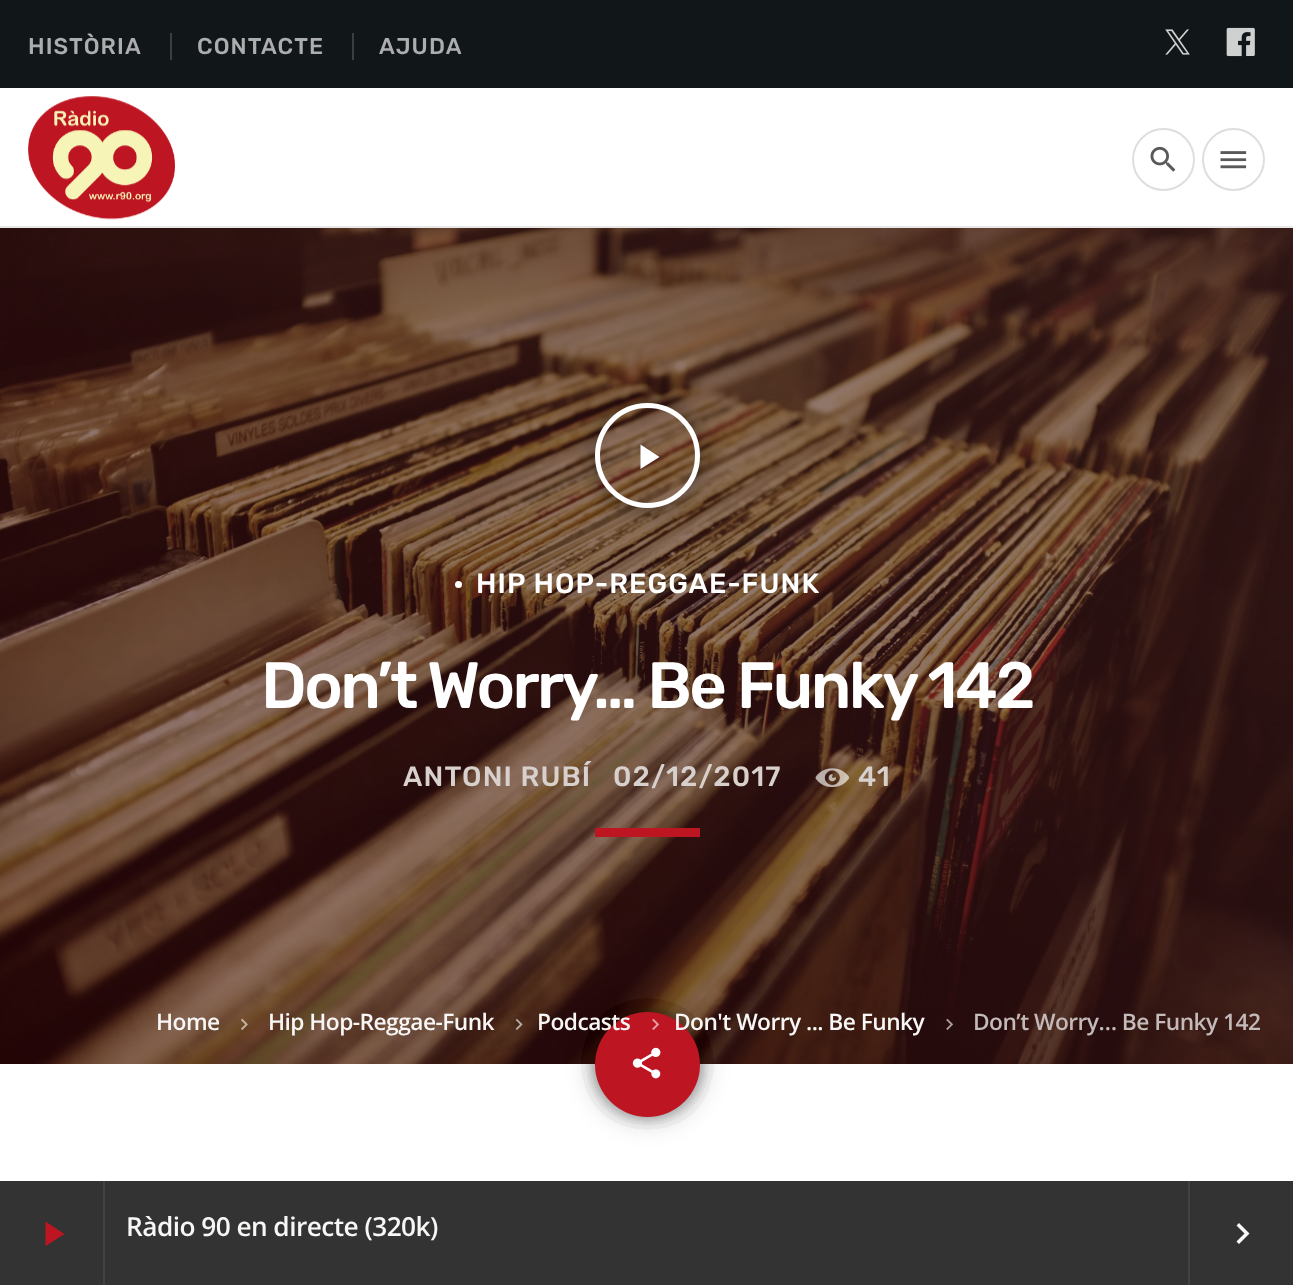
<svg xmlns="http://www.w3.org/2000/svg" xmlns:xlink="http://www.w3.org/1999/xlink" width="1293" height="1285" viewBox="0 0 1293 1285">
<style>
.cls-1{font:500 22.75px Rubik;letter-spacing:1.1px;fill:#acadae}
.cls-2{font:600 26.25px Open Sans;letter-spacing:-0.55px;fill:#f8f7f6}
.cls-3{font:500 28px Rubik;letter-spacing:1.1px;fill:#ffffff}
.cls-4{font:500 65.25px Rubik;letter-spacing:-2.6px;fill:#ffffff}
.cls-5{font:500 28px Rubik;letter-spacing:1.1px;fill:#d7d0cc}
.cls-6{font:600 22.75px Open Sans;letter-spacing:-0.55px;fill:#f8f7f6}
.cls-7{font:600 22.75px Open Sans;letter-spacing:-0.55px;fill:#c3bab9}
</style>
<defs>
<clipPath id="clip1"><path d="M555 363H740V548H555ZM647.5 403C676.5 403 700 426.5 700 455.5C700 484.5 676.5 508 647.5 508C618.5 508 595 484.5 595 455.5C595 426.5 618.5 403 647.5 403Z" clip-rule="evenodd"/></clipPath>
</defs>
<rect width="100%" height="100%" fill="#ffffff"/>
<rect fill="#111618" x="0" y="0" width="1293" height="88"/>
<rect fill="#3c3f3f" x="170" y="33" width="2" height="27"/>
<rect fill="#3c3f3f" x="352" y="33" width="2" height="27"/>
<image xlink:href="image0.png" x="1165" y="29" width="25" height="26"/>
<image xlink:href="image1.png" x="1226" y="27" width="29" height="30"/>
<rect fill="#e8e8e8" x="0" y="226" width="1293" height="2"/>
<image xlink:href="image2.png" x="28" y="96" width="147" height="124"/>
<circle fill="none" stroke="#dedede" stroke-width="2" cx="1163.5" cy="159.5" r="30.5"/>
<image xlink:href="image3.png" x="1150" y="146" width="26" height="26"/>
<circle fill="none" stroke="#dedede" stroke-width="2" cx="1233.5" cy="159.5" r="30.5"/>
<image xlink:href="image4.png" x="1220" y="151" width="27" height="18"/>
<rect fill="#333333" x="0" y="1181" width="1293" height="104"/>
<rect fill="#424242" x="103" y="1181" width="2" height="104"/>
<path fill="#bd1622" d="M45.5 1221.5L64.5 1234L45.5 1246Z"/>
<rect fill="#424242" x="1188" y="1181" width="2" height="104"/>
<path fill="#f9f9f9" d="M1236.5 1241.5L1244.5 1233.5L1236.5 1225.5L1239 1223L1249.5 1233.5L1239 1244Z"/>
<image xlink:href="image5.png" x="0" y="228" width="1293" height="836"/>
<g clip-path="url(#clip1)">
<rect fill="#000000" fill-opacity="0.5" filter="blur(13px)" x="595" y="403" width="105" height="105" rx="52.5"/>
</g>
<circle fill="none" stroke="#ffffff" stroke-width="5" cx="647.5" cy="455.5" r="50"/>
<path fill="#ffffff" d="M640.5 444.5L659.5 457L640.5 469Z"/>
<circle fill="#ffffff" cx="458.5" cy="584.5" r="3.5"/>
<image xlink:href="image6.png" x="815" y="768" width="35" height="20"/>
<rect fill="#bd1622" x="595" y="828" width="105" height="9"/>
<rect fill="#000000" fill-opacity="0.2" filter="blur(13px)" x="590" y="1006" width="115" height="116" rx="57.5"/>
<rect fill="#000000" fill-opacity="0.2" filter="blur(13px)" x="607" y="1024" width="81" height="80" rx="40"/>
<rect fill="#000000" fill-opacity="0.2" filter="blur(13px)" x="607" y="1024" width="81" height="80" rx="40"/>
<rect fill="#000000" fill-opacity="0.2" filter="blur(13px)" x="607" y="1024" width="81" height="80" rx="40"/>
<rect fill="#000000" fill-opacity="0.2" filter="blur(13px)" x="607" y="1024" width="81" height="80" rx="40"/>
<rect fill="#000000" fill-opacity="0.2" filter="blur(13px)" x="607" y="1024" width="81" height="80" rx="40"/>
<rect fill="#000000" fill-opacity="0.2" filter="blur(13px)" x="607" y="1024" width="81" height="80" rx="40"/>
<rect fill="#000000" fill-opacity="0.2" filter="blur(13px)" x="607" y="1024" width="81" height="80" rx="40"/>
<rect fill="#000000" fill-opacity="0.2" filter="blur(13px)" x="607" y="1024" width="81" height="80" rx="40"/>
<circle fill="#bd1622" cx="647.5" cy="1064.5" r="52.5"/>
<image xlink:href="image7.png" x="632" y="1047" width="29" height="32"/>
<image xlink:href="image8.png" x="241" y="1018" width="7" height="12"/>
<image xlink:href="image9.png" x="515" y="1018" width="8" height="12"/>
<image xlink:href="image10.png" x="652" y="1018" width="7" height="12"/>
<image xlink:href="image11.png" x="946" y="1018" width="7" height="12"/>
<text class="cls-1" x="28" y="54">HISTÒRIA</text>
<text class="cls-1" x="197" y="54">CONTACTE</text>
<text class="cls-1" x="379" y="54">AJUDA</text>
<text class="cls-2" x="126" y="1236">Ràdio 90 en directe (320k)</text>
<text class="cls-3" x="476" y="593">HIP HOP-REGGAE-FUNK</text>
<text class="cls-4" x="261" y="708">Don’t Worry… Be Funky 142</text>
<text class="cls-5" x="403" y="786">ANTONI RUBÍ</text>
<text class="cls-5" x="613" y="786">02/12/2017</text>
<text class="cls-5" x="858" y="786">41</text>
<text class="cls-6" x="156" y="1030">Home</text>
<text class="cls-6" x="268" y="1030">Hip Hop-Reggae-Funk</text>
<text class="cls-6" x="537" y="1030">Podcasts</text>
<text class="cls-6" x="674" y="1030">Don't Worry ... Be Funky</text>
<text class="cls-7" x="973" y="1030">Don’t Worry… Be Funky 142</text>
</svg>
